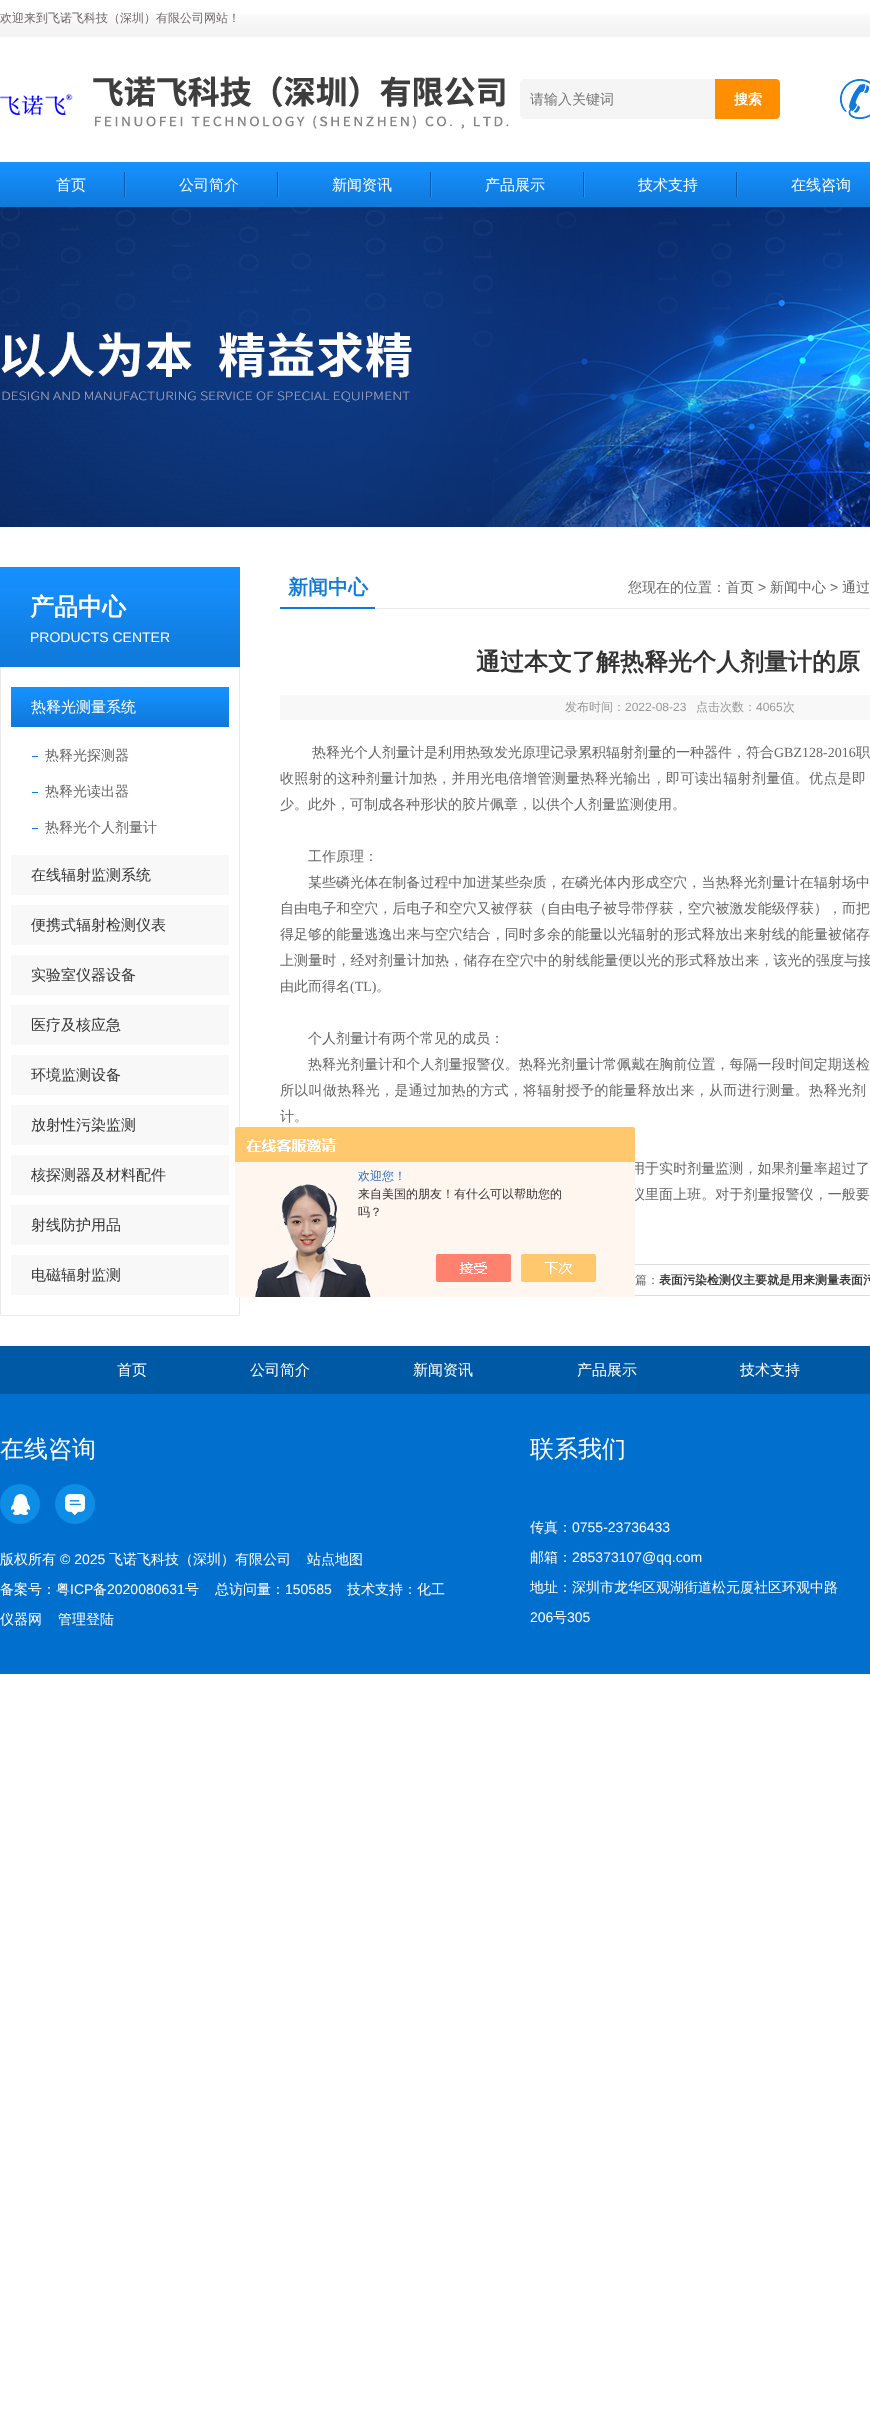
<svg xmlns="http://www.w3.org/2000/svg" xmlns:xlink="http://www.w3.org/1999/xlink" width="870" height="2424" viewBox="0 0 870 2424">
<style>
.cls-1{font:500 12px WenQuanYi Zen Hei;fill:#706868}
.cls-2{font:500 14px WenQuanYi Zen Hei;fill:#757575}
.cls-3{font:bold 14px WenQuanYi Zen Hei;fill:#ffffff}
.cls-4{font:500 15px WenQuanYi Zen Hei;fill:#ffffff}
.cls-5{font:bold 24px WenQuanYi Zen Hei;fill:#ffffff}
.cls-6{font:14px Liberation Sans;fill:#ffffff}
.cls-7{font:500 14px WenQuanYi Zen Hei;fill:#666666}
.cls-8{font:500 15px WenQuanYi Zen Hei;fill:#333333}
.cls-9{font:bold 20px WenQuanYi Zen Hei;fill:#0f7adb}
.cls-10{font:14px Liberation Sans;fill:#666666}
.cls-11{font:bold 24px WenQuanYi Zen Hei;fill:#333333}
.cls-12{font:500 12px WenQuanYi Zen Hei;fill:#999999}
.cls-13{font:12px Liberation Sans;fill:#999999}
.cls-14{font:14px Liberation Serif;fill:#666666}
.cls-15{font:500 14px WenQuanYi Zen Hei;letter-spacing:0.3px;fill:#666666}
.cls-16{font:500 14px WenQuanYi Zen Hei;letter-spacing:0.05px;fill:#666666}
.cls-17{font:500 14px WenQuanYi Zen Hei;letter-spacing:0.1px;fill:#666666}
.cls-18{font:500 12px WenQuanYi Zen Hei;fill:#666666}
.cls-19{font:bold 12px WenQuanYi Zen Hei;fill:#333333}
.cls-20{font:500 12px WenQuanYi Zen Hei;fill:#2e6ec6}
.cls-21{font:500 12px WenQuanYi Zen Hei;fill:#333333}
.cls-22{font:500 24px WenQuanYi Zen Hei;fill:#ffffff}
.cls-23{font:500 14px WenQuanYi Zen Hei;fill:#ffffff}
</style>
<rect width="100%" height="100%" fill="#ffffff"/>
<image xlink:href="image0.png" x="0" y="14" width="870" height="193"/>
<image xlink:href="image1.png" x="0" y="76" width="509" height="53"/>
<path fill="#f5f5f5" d="M524 79H715V119H524C522 119 520 117 520 115V83C520 81 522 79 524 79Z"/>
<path fill="#ff8e00" d="M715 79H776C778 79 780 81 780 83V115C780 117 778 119 776 119H715Z"/>
<image xlink:href="image2.png" x="840" y="79" width="30" height="40"/>
<image xlink:href="image3.png" x="124" y="172" width="2" height="25"/>
<image xlink:href="image3.png" x="277" y="172" width="2" height="25"/>
<image xlink:href="image3.png" x="430" y="172" width="2" height="25"/>
<image xlink:href="image3.png" x="583" y="172" width="2" height="25"/>
<image xlink:href="image3.png" x="736" y="172" width="2" height="25"/>
<image xlink:href="image4.png" x="0" y="207" width="870" height="320"/>
<image xlink:href="image5.png" x="0" y="567" width="240" height="100"/>
<rect fill="#eaeaea" x="239" y="667" width="1" height="649"/>
<rect fill="#eaeaea" x="0" y="1315" width="240" height="1"/>
<rect fill="#eaeaea" x="0" y="667" width="1" height="649"/>
<image xlink:href="image6.png" x="11" y="687" width="218" height="40"/>
<rect fill="#0f7adb" x="32" y="756" width="6" height="1"/>
<rect fill="#0f7adb" x="32" y="792" width="6" height="1"/>
<rect fill="#0f7adb" x="32" y="828" width="6" height="1"/>
<rect fill="#f8f8f8" x="11" y="855" width="218" height="40"/>
<rect fill="#f8f8f8" x="11" y="905" width="218" height="40"/>
<rect fill="#f8f8f8" x="11" y="955" width="218" height="40"/>
<rect fill="#f8f8f8" x="11" y="1005" width="218" height="40"/>
<rect fill="#f8f8f8" x="11" y="1055" width="218" height="40"/>
<rect fill="#f8f8f8" x="11" y="1105" width="218" height="40"/>
<rect fill="#f8f8f8" x="11" y="1155" width="218" height="40"/>
<rect fill="#f8f8f8" x="11" y="1205" width="218" height="40"/>
<rect fill="#f8f8f8" x="11" y="1255" width="218" height="40"/>
<rect fill="#eaeaea" x="375" y="608" width="495" height="1"/>
<rect fill="#0f7adb" x="280" y="607" width="95" height="2"/>
<rect fill="#f8f8f8" x="280" y="695" width="590" height="25"/>
<rect fill="none" stroke="#dddddd" x="280.5" y="1264.5" width="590" height="31"/>
<rect fill="#006fce" x="0" y="1394" width="870" height="280"/>
<rect fill="#0059a5" x="0" y="1346" width="870" height="48"/>
<circle fill="#0e8de6" cx="20" cy="1504" r="20"/>
<image xlink:href="image8.png" x="11" y="1494" width="19" height="21"/>
<circle fill="#0e8de6" cx="75" cy="1504" r="20"/>
<image xlink:href="image9.png" x="65" y="1494" width="20" height="21"/>
<text class="cls-1" x="0" y="22">欢迎来到飞诺飞科技（深圳）有限公司网站！</text>
<text class="cls-2" x="530" y="104">请输入关键词</text>
<text class="cls-3" x="734" y="104">搜索</text>
<text class="cls-4" x="56" y="190">首页</text>
<text class="cls-4" x="179" y="190">公司简介</text>
<text class="cls-4" x="332" y="190">新闻资讯</text>
<text class="cls-4" x="485" y="190">产品展示</text>
<text class="cls-4" x="638" y="190">技术支持</text>
<text class="cls-4" x="791" y="190">在线咨询</text>
<text class="cls-5" x="30" y="615">产品中心</text>
<text class="cls-6" x="30" y="642">PRODUCTS CENTER</text>
<text class="cls-4" x="31" y="712">热释光测量系统</text>
<text class="cls-7" x="45" y="760">热释光探测器</text>
<text class="cls-7" x="45" y="796">热释光读出器</text>
<text class="cls-7" x="45" y="832">热释光个人剂量计</text>
<text class="cls-8" x="31" y="880">在线辐射监测系统</text>
<text class="cls-8" x="31" y="930">便携式辐射检测仪表</text>
<text class="cls-8" x="31" y="980">实验室仪器设备</text>
<text class="cls-8" x="31" y="1030">医疗及核应急</text>
<text class="cls-8" x="31" y="1080">环境监测设备</text>
<text class="cls-8" x="31" y="1130">放射性污染监测</text>
<text class="cls-8" x="31" y="1180">核探测器及材料配件</text>
<text class="cls-8" x="31" y="1230">射线防护用品</text>
<text class="cls-8" x="31" y="1280">电磁辐射监测</text>
<text class="cls-9" x="288" y="594">新闻中心</text>
<text class="cls-7" x="628" y="592">您现在的位置：首页</text>
<text class="cls-10" x="758" y="592">&gt;</text>
<text class="cls-7" x="770" y="592">新闻中心</text>
<text class="cls-10" x="830" y="592">&gt;</text>
<text class="cls-7" x="842" y="592">通过</text>
<text class="cls-11" x="476" y="670">通过本文了解热释光个人剂量计的原</text>
<text class="cls-12" x="565" y="711">发布时间：</text>
<text class="cls-13" x="625" y="711">2022-08-23</text>
<text class="cls-12" x="696" y="711">点击次数：</text>
<text class="cls-13" x="756" y="711">4065</text>
<text class="cls-12" x="783" y="711">次</text>
<text class="cls-7" x="312" y="757">热释光个人剂量计是利用热致发光原理记录累积辐射剂量的一种器件，符合</text>
<text class="cls-14" x="774" y="757">GBZ128-2016</text>
<text class="cls-7" x="856" y="757">职</text>
<text class="cls-15" x="280" y="783">收照射的这种剂量计加热，并用光电倍增管测量热释光输出，即可读出辐射剂量值。优点是即</text>
<text class="cls-7" x="280" y="809">少。此外，可制成各种形状的胶片佩章，以供个人剂量监测使用。</text>
<text class="cls-7" x="308" y="861">工作原理：</text>
<text class="cls-16" x="308" y="887">某些磷光体在制备过程中加进某些杂质，在磷光体内形成空穴，当热释光剂量计在辐射场中</text>
<text class="cls-16"><tspan x="280" y="913">自由电子和空穴，后电子和空穴又被俘获（自由电子被导带俘获，空穴被激发能级俘获），而把</tspan><tspan x="280" y="939">得足够的能量逃逸出来与空穴结合，同时多余的能量以光辐射的形式释放出来射线的能量被储存</tspan></text>
<text class="cls-17" x="280" y="965">上测量时，经对剂量计加热，储存在空穴中的射线能量便以光的形式释放出来，该光的强度与接</text>
<text class="cls-7" x="280" y="991">由此而得名</text>
<text class="cls-14" x="350" y="991">(TL)</text>
<text class="cls-7" x="376" y="991">。</text>
<text class="cls-7" x="308" y="1043">个人剂量计有两个常见的成员：</text>
<text class="cls-16" x="308" y="1069">热释光剂量计和个人剂量报警仪。热释光剂量计常佩戴在胸前位置，每隔一段时间定期送检</text>
<text class="cls-15" x="280" y="1095">所以叫做热释光，是通过加热的方式，将辐射授予的能量释放出来，从而进行测量。热释光剂</text>
<text class="cls-7" x="280" y="1121">计。</text>
<text class="cls-16"><tspan x="631" y="1173">用于实时剂量监测，如果剂量率超过了</tspan><tspan x="631" y="1199">仪里面上班。对于剂量报警仪，一般要</tspan></text>
<text class="cls-18" x="635" y="1284">篇：</text>
<text class="cls-19" x="659" y="1284">表面污染检测仪主要就是用来测量表面污</text>
<image xlink:href="image7.png" x="235" y="1127" width="400" height="170"/>
<text class="cls-20" x="358" y="1180">欢迎您！</text>
<text class="cls-21"><tspan x="358" y="1198">来自美国的朋友！有什么可以帮助您的</tspan><tspan x="358" y="1216">吗？</tspan></text>
<text class="cls-4" x="117" y="1375">首页</text>
<text class="cls-4" x="250" y="1375">公司简介</text>
<text class="cls-4" x="413" y="1375">新闻资讯</text>
<text class="cls-4" x="577" y="1375">产品展示</text>
<text class="cls-4" x="740" y="1375">技术支持</text>
<text class="cls-22" x="0" y="1457">在线咨询</text>
<text class="cls-23" x="0" y="1564">版权所有</text>
<text class="cls-6" x="60" y="1564">© 2025</text>
<text class="cls-23" x="109" y="1564">飞诺飞科技（深圳）有限公司</text>
<text class="cls-23" x="307" y="1564">站点地图</text>
<text class="cls-23" x="0" y="1594">备案号：粤</text>
<text class="cls-6" x="70" y="1594">ICP</text>
<text class="cls-23" x="93" y="1594">备</text>
<text class="cls-6" x="107" y="1594">2020080631</text>
<text class="cls-23" x="185" y="1594">号</text>
<text class="cls-23" x="215" y="1594">总访问量：</text>
<text class="cls-6" x="285" y="1594">150585</text>
<text class="cls-23" x="347" y="1594">技术支持：化工</text>
<text class="cls-23" x="0" y="1624">仪器网</text>
<text class="cls-23" x="58" y="1624">管理登陆</text>
<text class="cls-22" x="530" y="1457">联系我们</text>
<text class="cls-23" x="530" y="1532">传真：</text>
<text class="cls-6" x="572" y="1532">0755-23736433</text>
<text class="cls-23" x="530" y="1562">邮箱：</text>
<text class="cls-6" x="572" y="1562">285373107@qq.com</text>
<text class="cls-23" x="530" y="1592">地址：深圳市龙华区观湖街道松元厦社区环观中路</text>
<text class="cls-6" x="530" y="1622">206</text>
<text class="cls-23" x="553" y="1622">号</text>
<text class="cls-6" x="567" y="1622">305</text>
</svg>
